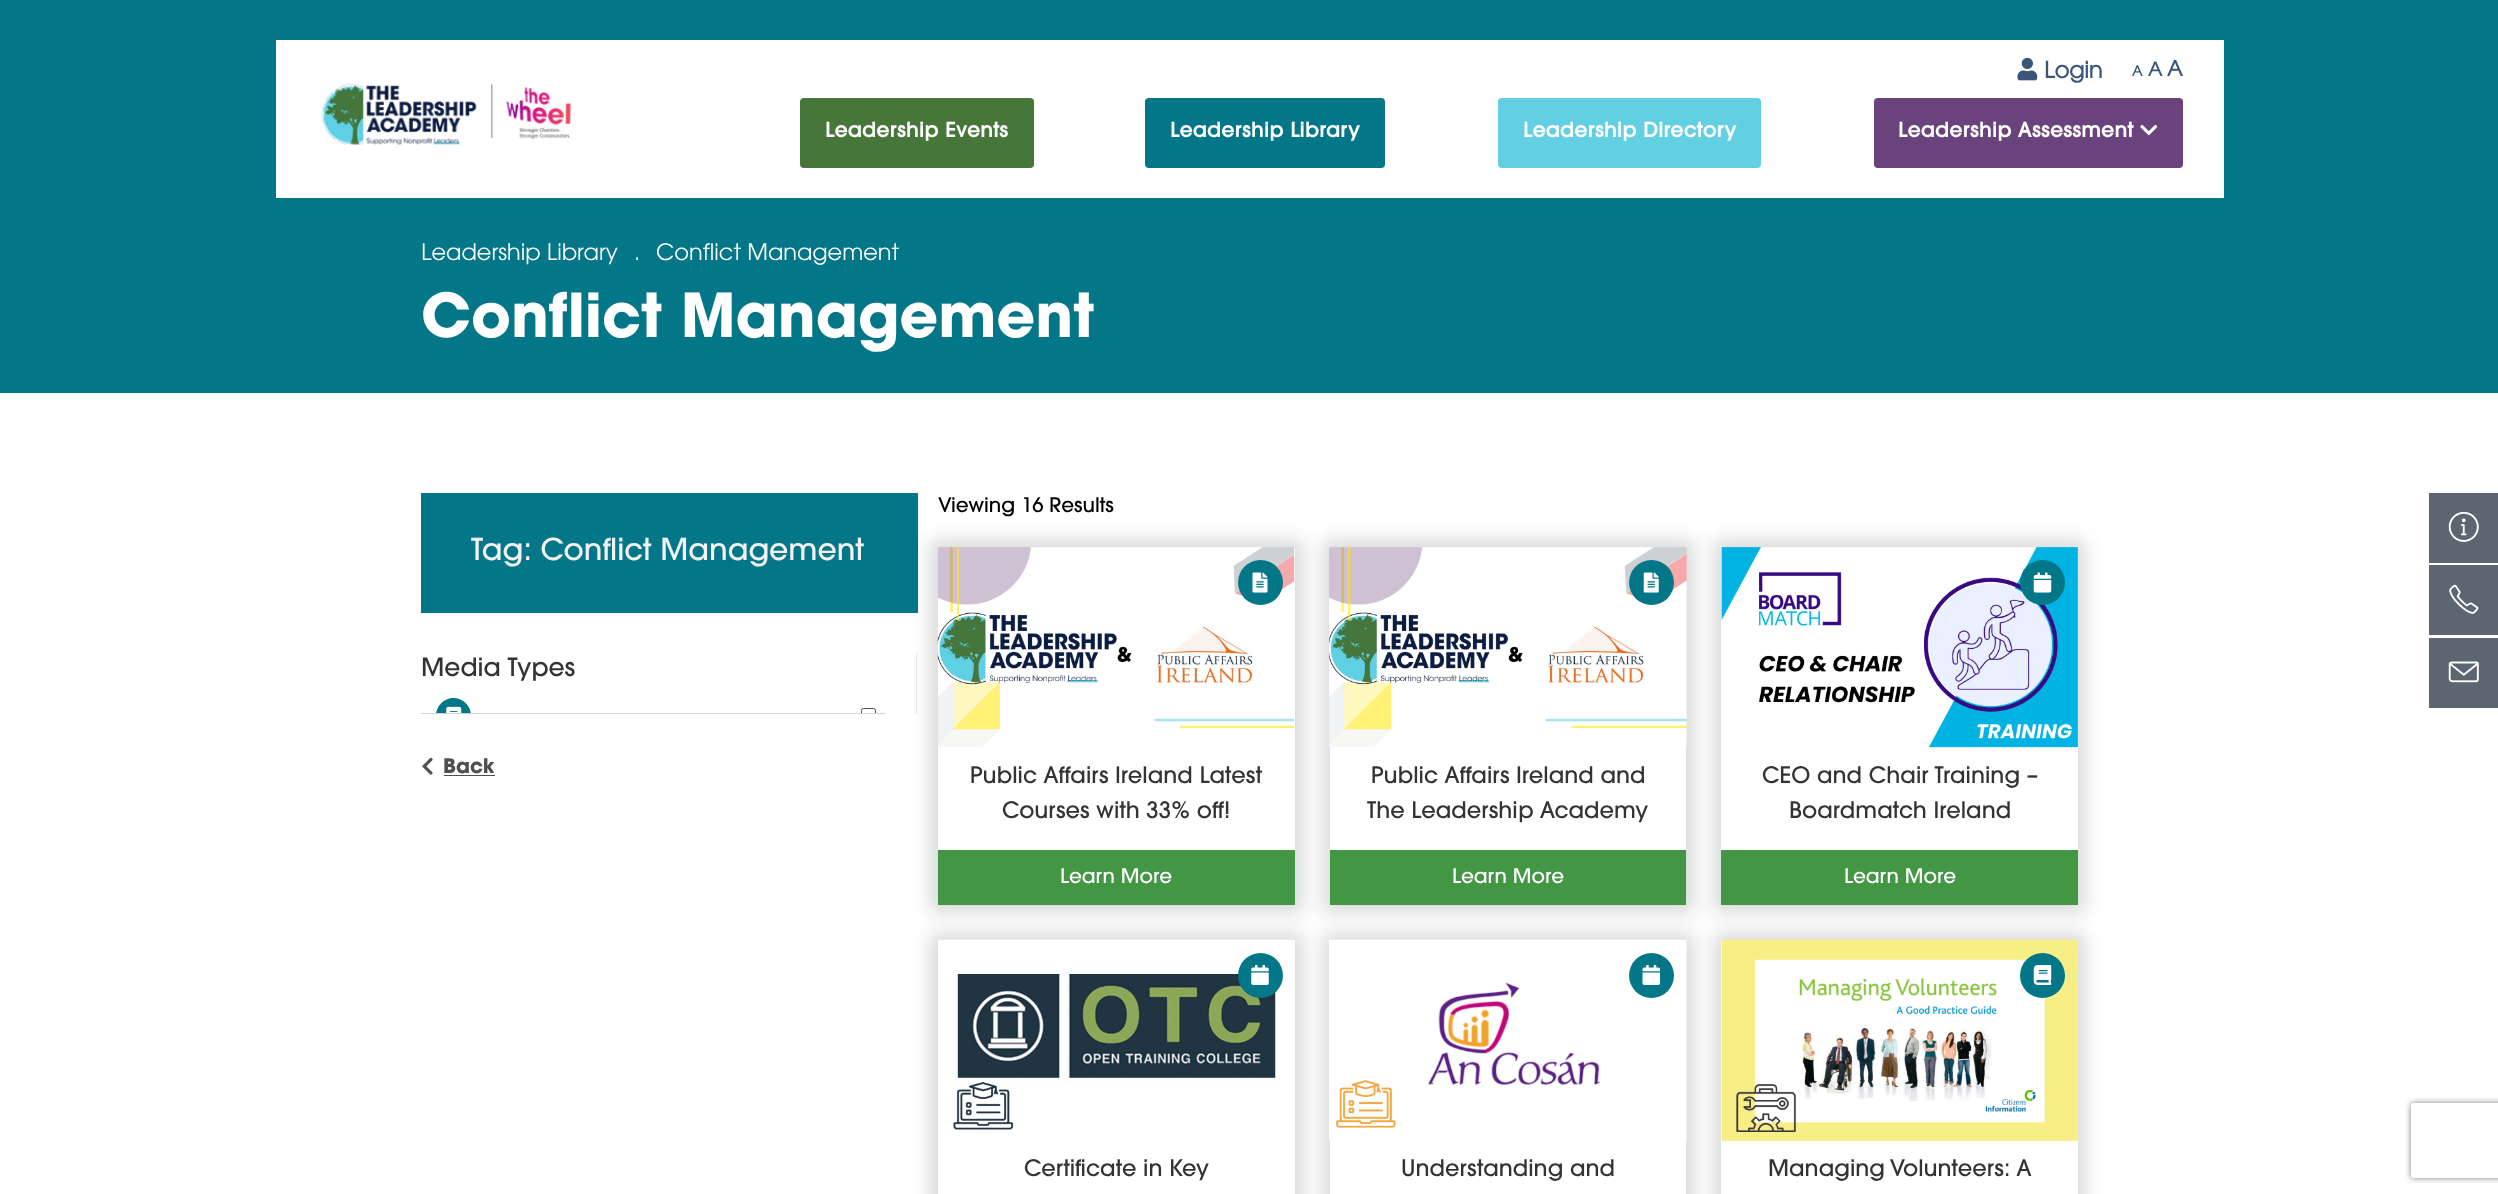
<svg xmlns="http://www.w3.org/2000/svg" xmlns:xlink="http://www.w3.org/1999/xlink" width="2498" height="1194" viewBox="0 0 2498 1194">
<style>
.cls-1{font:bold 22.5px 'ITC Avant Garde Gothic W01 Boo';fill:#395678}
.cls-2{font:bold 14px 'ITC Avant Garde Gothic W01 Boo';fill:#395678}
.cls-3{font:bold 19px 'ITC Avant Garde Gothic W01 Boo';fill:#395678}
.cls-4{font:bold 21px 'ITC Avant Garde Gothic W01 Boo';fill:#395678}
.cls-5{font:bold 20px 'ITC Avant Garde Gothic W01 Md';letter-spacing:0.5px;fill:#ffffff}
.cls-6{font:22.5px 'ITC Avant Garde Gothic W01 Boo';fill:#ffffff}
.cls-7{font:bold 60px 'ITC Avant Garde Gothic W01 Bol';fill:#ffffff}
.cls-8{font:500 30px 'ITC Avant Garde Gothic W01 Md';fill:#f2f2f2}
.cls-9{font:500 25px 'ITC Avant Garde Gothic W01 Md';fill:#333333}
.cls-10{font:bold 20px 'ITC Avant Garde Gothic W01 Bol';fill:#4f4f4f}
.cls-11{font:500 20px 'ITC Avant Garde Gothic W01 Md';fill:#000000}
.cls-12{font:500 22.5px 'ITC Avant Garde Gothic W01 Md';fill:#333333}
.cls-13{font:500 20px 'ITC Avant Garde Gothic W01 Md';fill:#ffffff}
</style>
<defs>
<clipPath id="clip1"><rect x="421" y="698" width="465" height="15"/></clipPath>
<clipPath id="clip2"><path d="M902 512H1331V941H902ZM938 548H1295V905H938Z" clip-rule="evenodd"/></clipPath>
<clipPath id="clip3"><path d="M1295 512H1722V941H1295ZM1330 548H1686V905H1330Z" clip-rule="evenodd"/></clipPath>
<clipPath id="clip4"><path d="M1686 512H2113V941H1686ZM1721 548H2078V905H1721Z" clip-rule="evenodd"/></clipPath>
<clipPath id="clip5"><path d="M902 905H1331V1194H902ZM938 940H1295V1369H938Z" clip-rule="evenodd"/></clipPath>
<clipPath id="clip6"><path d="M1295 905H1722V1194H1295ZM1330 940H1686V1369H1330Z" clip-rule="evenodd"/></clipPath>
<clipPath id="clip7"><path d="M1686 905H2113V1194H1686ZM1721 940H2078V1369H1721Z" clip-rule="evenodd"/></clipPath>
<clipPath id="clip8"><path d="M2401 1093H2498V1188H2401ZM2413.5 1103H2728.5C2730 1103 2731 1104 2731 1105.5V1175.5C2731 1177 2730 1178 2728.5 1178H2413.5C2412 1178 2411 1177 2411 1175.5V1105.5C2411 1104 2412 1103 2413.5 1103Z" clip-rule="evenodd"/></clipPath>
</defs>
<rect width="100%" height="100%" fill="#ffffff"/>
<rect fill="#037688" x="0" y="0" width="2498" height="393"/>
<rect fill="#ffffff" x="276" y="40" width="1948" height="158"/>
<image xlink:href="image0.png" x="2017" y="57" width="21" height="24"/>
<image xlink:href="image1.png" x="321" y="84" width="251" height="61"/>
<rect fill="#47763b" x="800" y="98" width="234" height="70" rx="4"/>
<rect fill="#037688" x="1145" y="98" width="240" height="70" rx="4"/>
<rect fill="#63cfe3" x="1498" y="98" width="263" height="70" rx="4"/>
<rect fill="#6a427c" x="1874" y="98" width="309" height="70" rx="4"/>
<image xlink:href="image2.png" x="2140" y="124" width="18" height="12"/>
<rect fill="#037688" x="421" y="493" width="497" height="120"/>
<rect fill="#e5e7eb" x="916" y="653" width="1" height="61"/>
<rect fill="#d4d4d4" x="421" y="713" width="465" height="1"/>
<path fill="#037688" d="M453.5 698C463 698 471 706 471 715.5V713H436V715.5C436 706 444 698 453.5 698Z"/>
<image xlink:href="image3.png" x="446" y="706" width="16" height="7"/>
<g clip-path="url(#clip1)">
<rect fill="none" stroke="#4f4f4f" x="861.5" y="708.5" width="14" height="14" rx="2"/>
</g>
<image xlink:href="image4.png" x="422" y="757" width="11" height="18"/>
<rect fill="#4f4f4f" x="444" y="775" width="51" height="1"/>
<g clip-path="url(#clip2)">
<rect fill="#000000" fill-opacity="0.15" filter="blur(9px)" x="930" y="540" width="373" height="373"/>
</g>
<image xlink:href="image5.png" x="937" y="547" width="358" height="200"/>
<circle fill="#037688" cx="1260.5" cy="582.5" r="22.5"/>
<image xlink:href="image6.png" x="1252" y="572" width="16" height="21"/>
<rect fill="#429644" x="938" y="850" width="357" height="55"/>
<g clip-path="url(#clip3)">
<rect fill="#000000" fill-opacity="0.15" filter="blur(9px)" x="1323" y="540" width="371" height="373"/>
</g>
<g clip-path="url(#clip4)">
<rect fill="#000000" fill-opacity="0.15" filter="blur(9px)" x="1714" y="540" width="371" height="373"/>
</g>
<image xlink:href="image7.png" x="1329" y="547" width="358" height="200"/>
<circle fill="#037688" cx="1651.5" cy="582.5" r="22.5"/>
<image xlink:href="image8.png" x="1643" y="572" width="16" height="21"/>
<rect fill="#429644" x="1330" y="850" width="356" height="55"/>
<image xlink:href="image9.png" x="1721" y="547" width="357" height="201"/>
<circle fill="#037688" cx="2042.5" cy="582.5" r="22.5"/>
<image xlink:href="image10.png" x="2033" y="572" width="19" height="21"/>
<rect fill="#429644" x="1721" y="850" width="357" height="55"/>
<g clip-path="url(#clip5)">
<rect fill="#000000" fill-opacity="0.15" filter="blur(9px)" x="930" y="933" width="373" height="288"/>
</g>
<image xlink:href="image11.png" x="938" y="939" width="356" height="191"/>
<circle fill="#037688" cx="1260.5" cy="975.5" r="22.5"/>
<image xlink:href="image12.png" x="1251" y="965" width="18" height="20"/>
<g clip-path="url(#clip6)">
<rect fill="#000000" fill-opacity="0.15" filter="blur(9px)" x="1323" y="933" width="371" height="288"/>
</g>
<g clip-path="url(#clip7)">
<rect fill="#000000" fill-opacity="0.15" filter="blur(9px)" x="1714" y="933" width="371" height="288"/>
</g>
<image xlink:href="image13.png" x="1329" y="939" width="358" height="202"/>
<circle fill="#037688" cx="1651.5" cy="975.5" r="22.5"/>
<image xlink:href="image14.png" x="1642" y="965" width="18" height="20"/>
<image xlink:href="image15.png" x="1721" y="939" width="357" height="202"/>
<circle fill="#037688" cx="2042.5" cy="975.5" r="22.5"/>
<image xlink:href="image16.png" x="2033" y="965" width="19" height="20"/>
<rect fill="#5b6670" x="2429" y="493" width="69" height="70"/>
<image xlink:href="image17.png" x="2448" y="511" width="31" height="31"/>
<rect fill="#5b6670" x="2429" y="565" width="69" height="70"/>
<image xlink:href="image18.png" x="2449" y="584" width="30" height="30"/>
<rect fill="#5b6670" x="2429" y="638" width="69" height="70"/>
<image xlink:href="image19.png" x="2448" y="661" width="31" height="22"/>
<g clip-path="url(#clip8)">
<rect fill="#808080" filter="blur(3px)" x="2411" y="1103" width="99" height="75" rx="2.5"/>
</g>
<text class="cls-1" x="2044" y="78">Login</text>
<text class="cls-2" x="2132" y="76">A</text>
<text class="cls-3" x="2148" y="76">A</text>
<text class="cls-4" x="2167" y="76">A</text>
<text class="cls-5" x="825" y="137">Leadership Events</text>
<text class="cls-5" x="1170" y="137">Leadership Library</text>
<text class="cls-5" x="1523" y="137">Leadership Directory</text>
<text class="cls-5" x="1898" y="137">Leadership Assessment</text>
<text class="cls-6" x="421" y="260">Leadership Library</text>
<text class="cls-6" x="634" y="260">.</text>
<text class="cls-6" x="656" y="260">Conflict Management</text>
<text class="cls-7" x="421" y="337">Conflict Management</text>
<text class="cls-8" x="471" y="560">Tag: Conflict Management</text>
<text class="cls-9" x="421" y="676">Media Types</text>
<text class="cls-10" x="443" y="773">Back</text>
<text class="cls-11" x="938" y="512">Viewing 16 Results</text>
<text class="cls-12" x="970" y="783">Public Affairs Ireland Latest</text>
<text class="cls-12" x="1002" y="818">Courses with 33% off!</text>
<text class="cls-13" x="1060" y="883">Learn More</text>
<text class="cls-12" x="1371" y="783">Public Affairs Ireland and</text>
<text class="cls-12" x="1367" y="818">The Leadership Academy</text>
<text class="cls-13" x="1452" y="883">Learn More</text>
<text class="cls-12" x="1762" y="783">CEO and Chair Training –</text>
<text class="cls-12" x="1789" y="818">Boardmatch Ireland</text>
<text class="cls-13" x="1844" y="883">Learn More</text>
<text class="cls-12" x="1024" y="1176">Certificate in Key</text>
<text class="cls-12" x="1401" y="1176">Understanding and</text>
<text class="cls-12" x="1768" y="1176">Managing Volunteers: A</text>
</svg>
